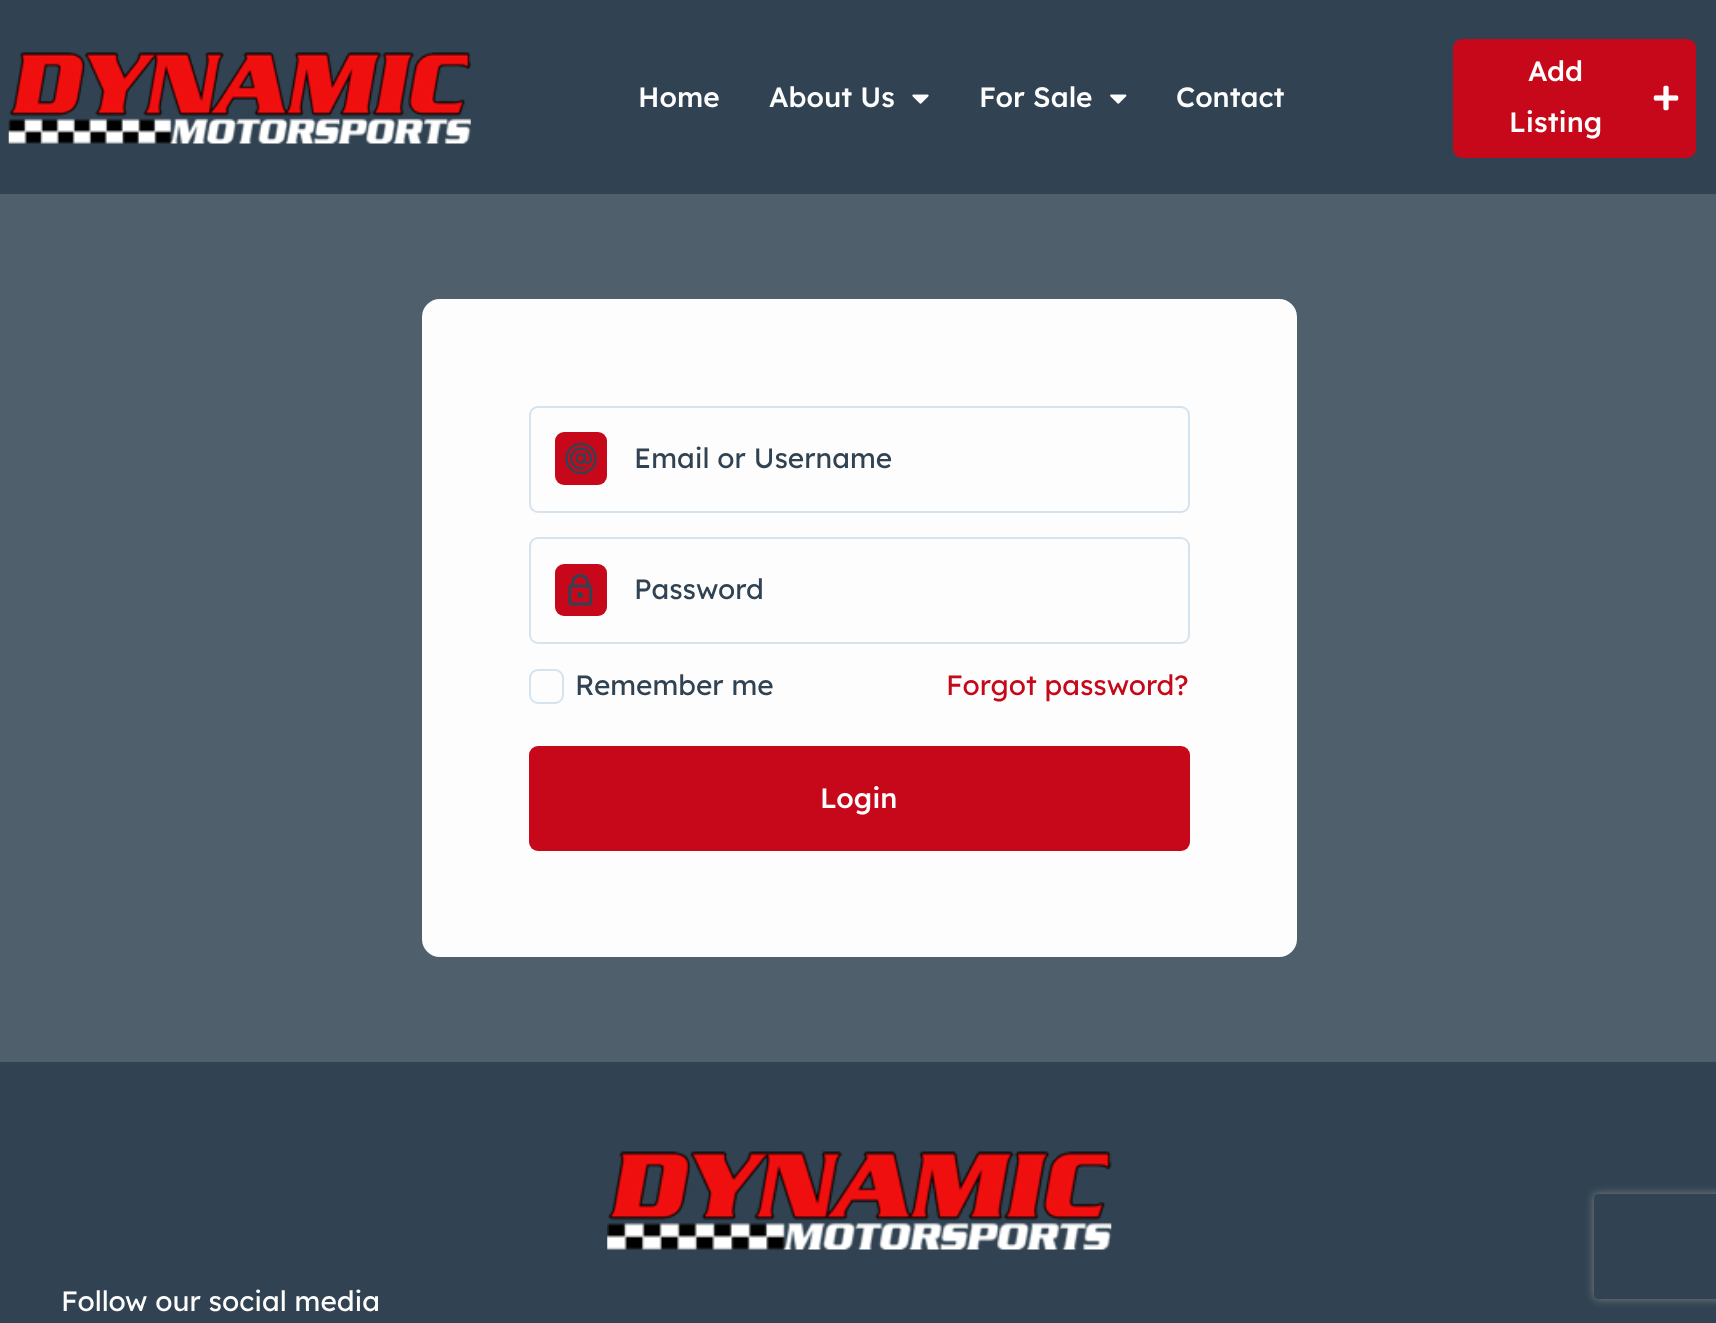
<svg xmlns="http://www.w3.org/2000/svg" xmlns:xlink="http://www.w3.org/1999/xlink" width="1716" height="1323" viewBox="0 0 1716 1323">
<style>
.cls-1{font:500 28px Lexend Deca;fill:#fdfdfd}
.cls-2{font:28px Lexend Deca;fill:#314352}
.cls-3{font:28px Lexend Deca;fill:#c7081b}
.cls-4{font:28px Lexend Deca;fill:#fdfdfd}
</style>
<defs>
<clipPath id="clip1"><path d="M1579 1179H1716V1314H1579ZM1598 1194H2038C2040 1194 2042 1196 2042 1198V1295C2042 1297 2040 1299 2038 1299H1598C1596 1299 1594 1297 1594 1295V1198C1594 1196 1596 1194 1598 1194Z" clip-rule="evenodd"/></clipPath>
</defs>
<rect width="100%" height="100%" fill="#314352"/>
<image xlink:href="image0.png" x="8" y="52" width="463" height="92"/>
<image xlink:href="image1.png" x="912" y="94" width="17" height="10"/>
<image xlink:href="image2.png" x="1110" y="94" width="17" height="10"/>
<rect fill="#c7081b" x="1453" y="39" width="243" height="119" rx="9"/>
<image xlink:href="image3.png" x="1653" y="85" width="26" height="26"/>
<rect fill="#4f5f6c" x="0" y="194" width="1716" height="868"/>
<rect fill="#fdfdfd" stroke="#fdfdfd" stroke-width="2" x="423" y="300" width="873" height="656" rx="17"/>
<rect fill="none" stroke="#d5e3ee" stroke-width="2" x="530" y="407" width="659" height="105" rx="8"/>
<rect fill="#c7081b" x="555" y="432" width="52" height="53" rx="9"/>
<image xlink:href="image4.png" x="565" y="443" width="32" height="31"/>
<rect fill="none" stroke="#d5e3ee" stroke-width="2" x="530" y="538" width="659" height="105" rx="8"/>
<rect fill="#c7081b" x="555" y="564" width="52" height="52" rx="9"/>
<image xlink:href="image5.png" x="568" y="574" width="25" height="32"/>
<rect fill="none" stroke="#d5e3ee" stroke-width="2" x="530" y="670" width="33" height="33" rx="8"/>
<rect fill="#c7081b" x="529" y="746" width="661" height="105" rx="9"/>
<image xlink:href="image6.png" x="607" y="1151" width="505" height="99"/>
<g clip-path="url(#clip1)">
<rect fill="#808080" filter="blur(4.5px)" x="1594" y="1194" width="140" height="105" rx="4"/>
</g>
<text class="cls-1" x="638" y="107">Home</text>
<text class="cls-1" x="769" y="107">About Us</text>
<text class="cls-1" x="979" y="107">For Sale</text>
<text class="cls-1" x="1176" y="107">Contact</text>
<text class="cls-1" x="1528" y="81">Add</text>
<text class="cls-1" x="1509" y="132">Listing</text>
<text class="cls-2" x="634" y="468">Email or Username</text>
<text class="cls-2" x="634" y="599">Password</text>
<text class="cls-2" x="575" y="695">Remember me</text>
<text class="cls-3" x="946" y="695">Forgot password?</text>
<text class="cls-1" x="820" y="808">Login</text>
<text class="cls-4" x="61" y="1311">Follow our social media</text>
</svg>
